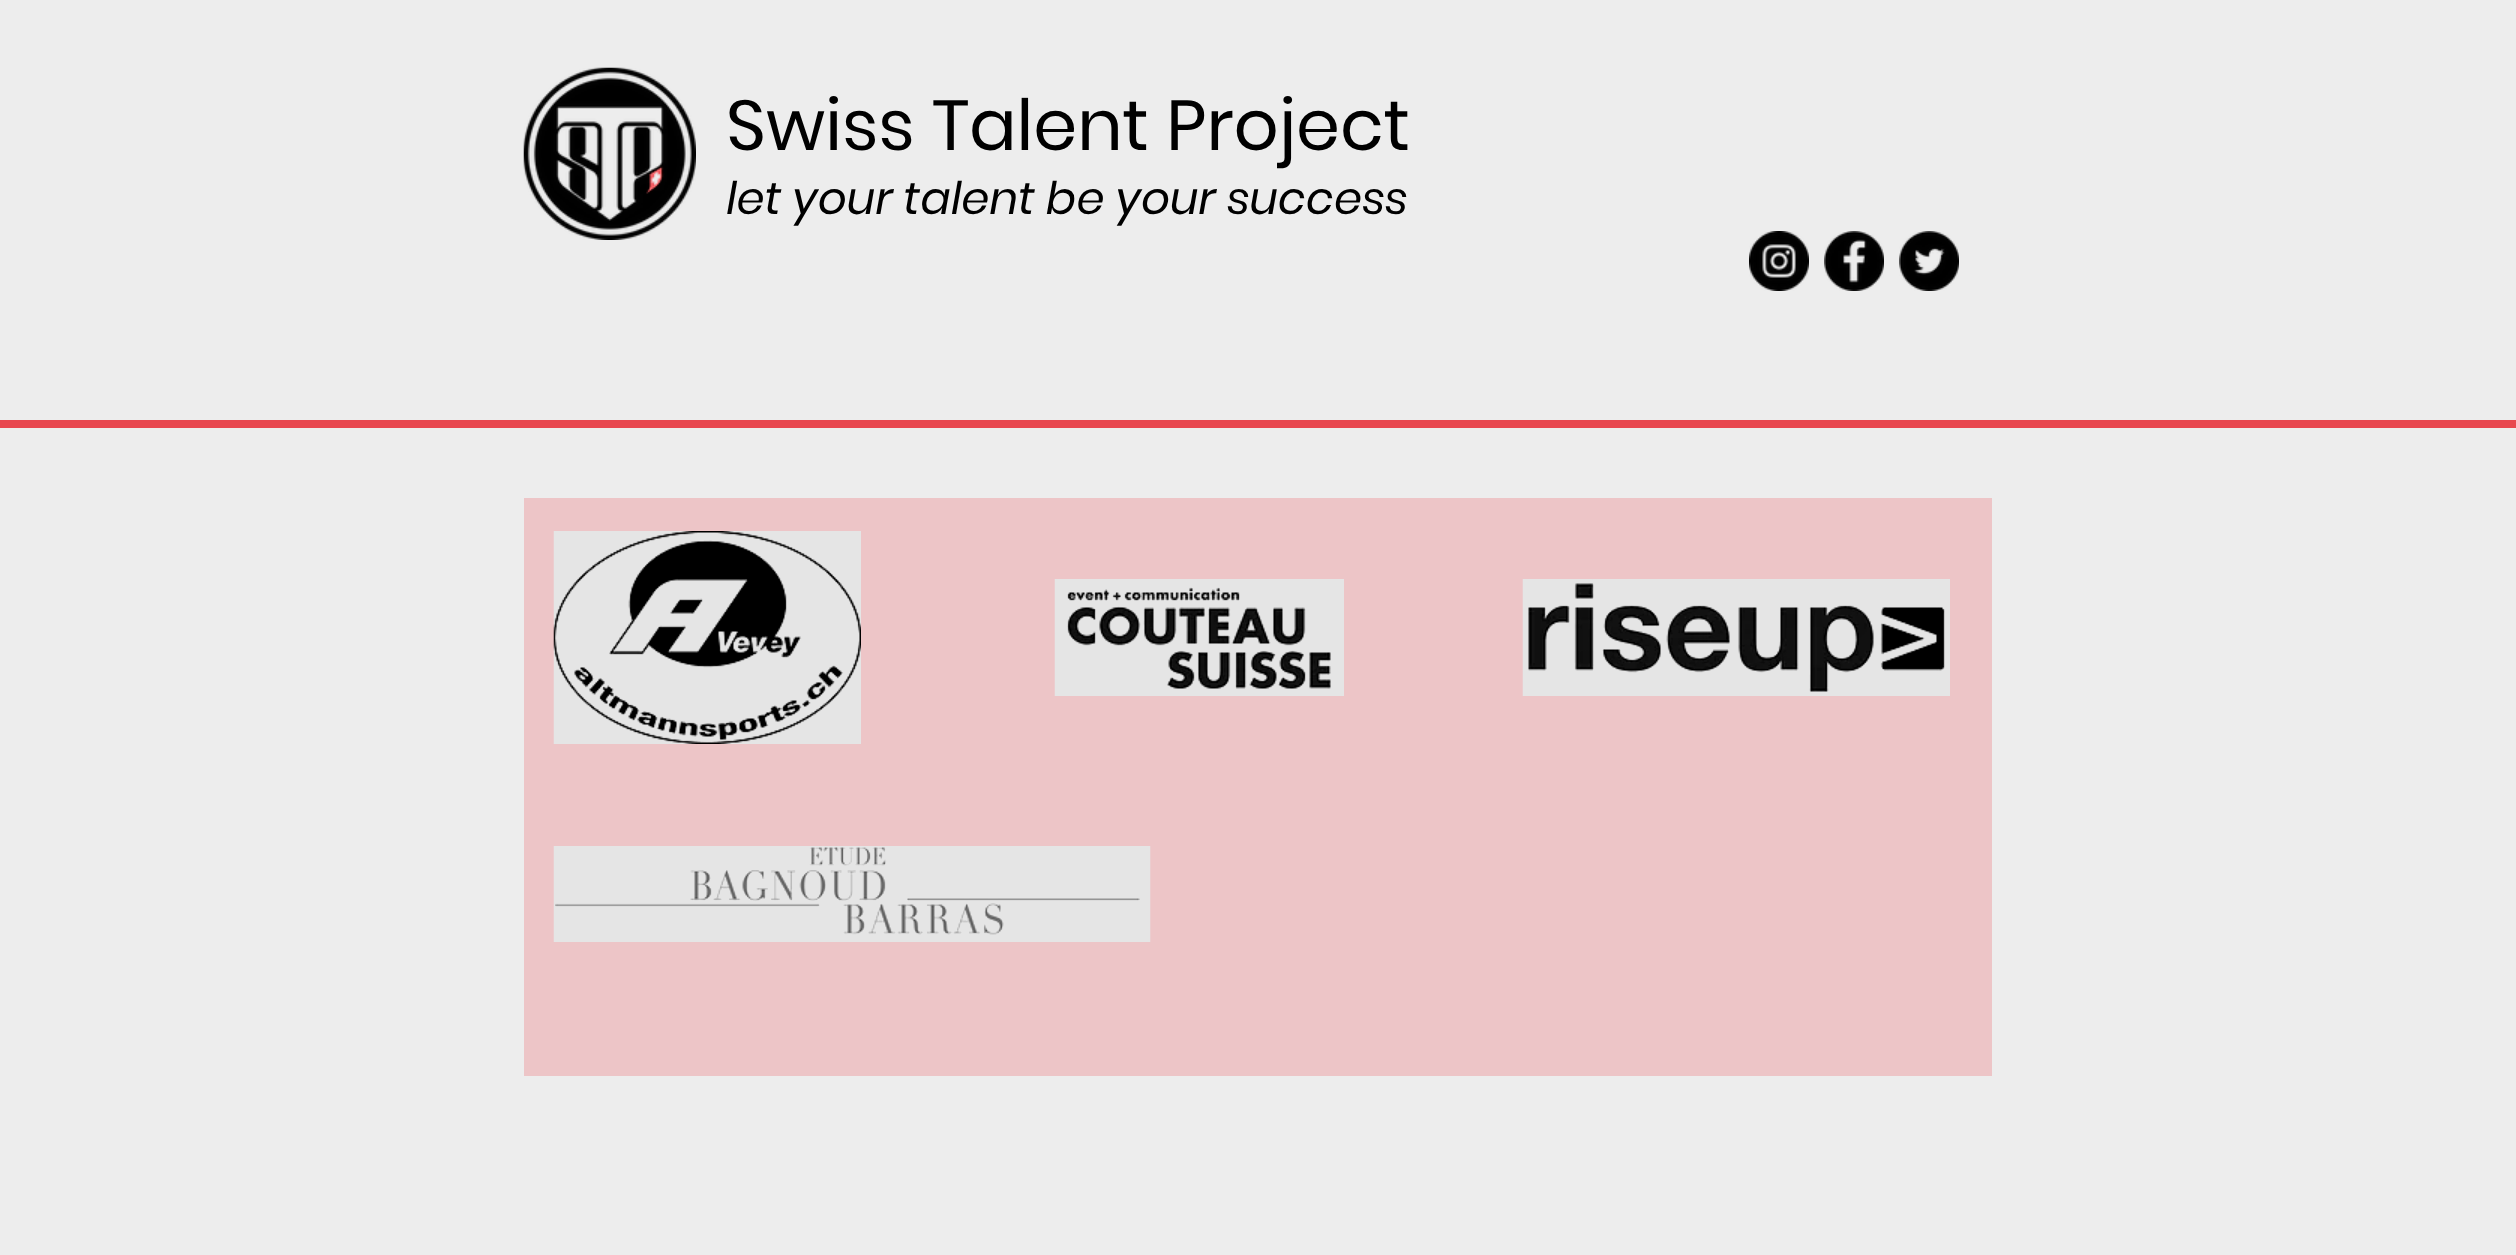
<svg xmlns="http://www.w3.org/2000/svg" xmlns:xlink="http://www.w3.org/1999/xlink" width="2516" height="1255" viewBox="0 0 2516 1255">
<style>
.cls-1{font:70.5px Poppins;fill:#000000}
.cls-2{font:italic 45px Poppins;fill:#000000}
</style>
<rect width="100%" height="100%" fill="#ededed"/>
<image xlink:href="image0.png" x="523" y="67" width="173" height="173"/>
<image xlink:href="image1.png" x="1749" y="231" width="60" height="60"/>
<image xlink:href="image2.png" x="1824" y="231" width="60" height="60"/>
<image xlink:href="image3.png" x="1899" y="231" width="60" height="60"/>
<rect fill="#e8474f" x="0" y="420" width="2516" height="8"/>
<rect fill="#edc5c7" x="524" y="498" width="1468" height="578"/>
<image xlink:href="image4.png" x="553" y="531" width="308" height="213"/>
<image xlink:href="image5.png" x="1054" y="579" width="290" height="117"/>
<image xlink:href="image6.png" x="1522" y="579" width="428" height="117"/>
<image xlink:href="image7.png" x="553" y="846" width="598" height="96"/>
<text class="cls-1" x="726" y="150">Swiss Talent Project</text>
<text class="cls-2" x="726" y="214">let your talent be your success</text>
</svg>
